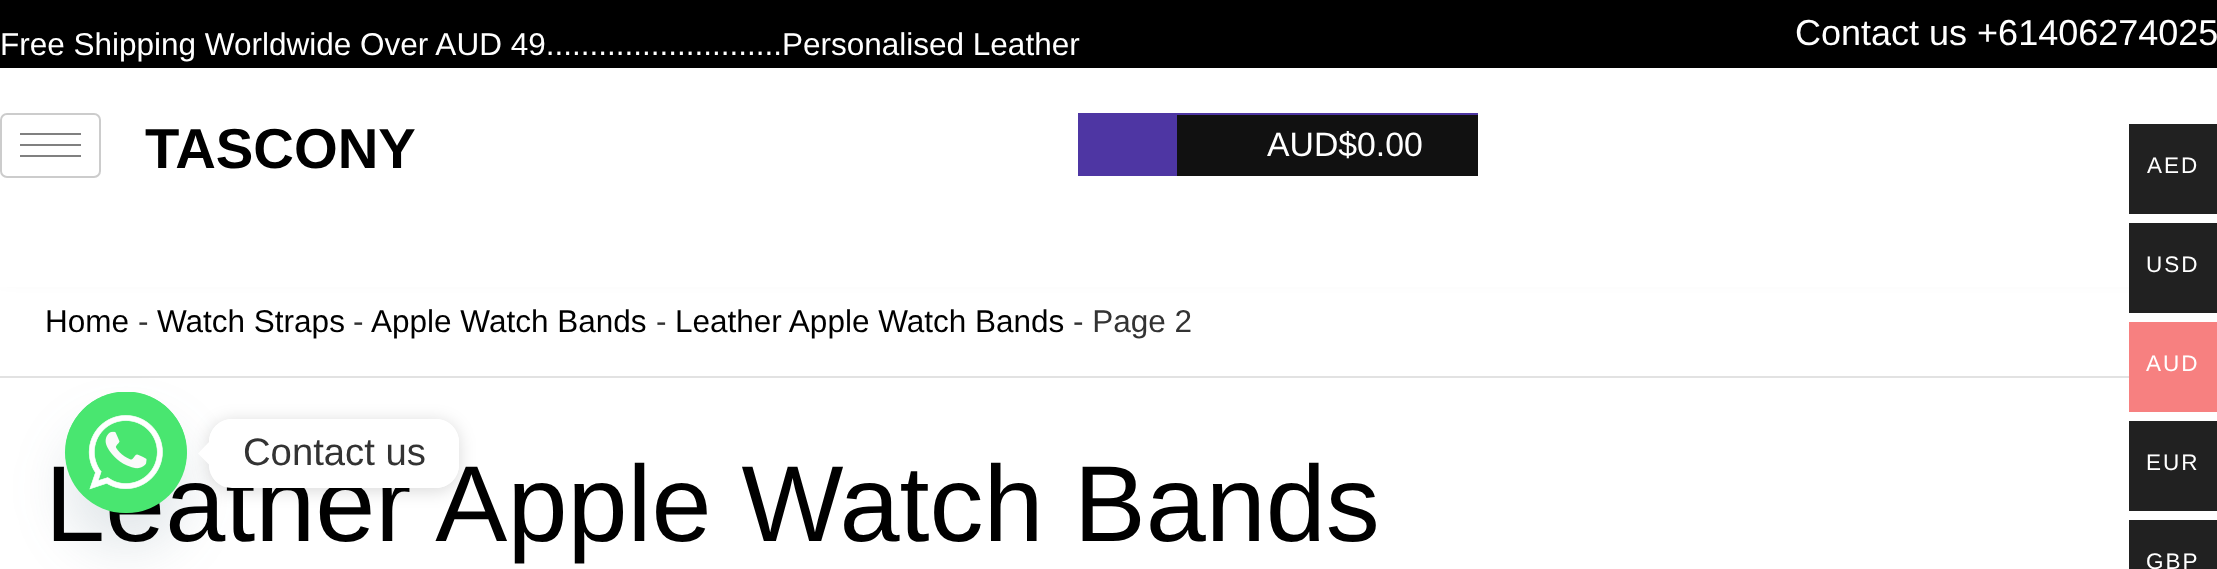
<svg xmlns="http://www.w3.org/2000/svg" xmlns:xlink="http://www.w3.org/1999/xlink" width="2217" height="569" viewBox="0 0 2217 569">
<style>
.cls-1{font:31.5px Liberation Sans;fill:#ffffff}
.cls-2{font:36px Liberation Sans;fill:#ffffff}
.cls-3{font:bold 56.25px Liberation Sans;fill:#000000}
.cls-4{font:33.75px Liberation Sans;fill:#ffffff}
.cls-5{font:31.5px Liberation Sans;fill:#000000}
.cls-6{font:31.5px Liberation Sans;fill:#333333}
.cls-7{font:108px Liberation Sans;fill:#000000}
.cls-8{font:38.25px Liberation Sans;fill:#333333}
.cls-9{font:22.5px Liberation Sans;letter-spacing:2px;fill:#ffffff}
</style>
<defs>
<clipPath id="clip1"><path d="M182 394H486V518H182ZM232 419H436C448.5 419 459 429.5 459 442V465C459 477.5 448.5 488 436 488H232C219.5 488 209 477.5 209 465V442C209 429.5 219.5 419 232 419Z" clip-rule="evenodd"/></clipPath>
</defs>
<rect width="100%" height="100%" fill="#ffffff"/>
<rect fill="#000000" x="0" y="0" width="2217" height="68"/>
<rect fill="#000000" fill-opacity="0.16" filter="blur(11px)" x="0" y="68" width="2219" height="202"/>
<rect fill="#ffffff" x="0" y="68" width="2217" height="219"/>
<rect fill="none" stroke="#cccccc" stroke-width="2" x="1" y="114" width="99" height="63" rx="6"/>
<rect fill="#808080" x="20" y="133" width="61" height="2"/>
<rect fill="#808080" x="20" y="144" width="61" height="2"/>
<rect fill="#808080" x="20" y="155" width="61" height="2"/>
<rect fill="#4e36a3" x="1078" y="113" width="400" height="63"/>
<rect fill="#111111" x="1177" y="115" width="301" height="61"/>
<rect fill="#e2e2e2" x="0" y="376" width="2129" height="2"/>
<rect fill="#49687e" fill-opacity="0.16" filter="blur(27px)" x="65" y="428" width="122" height="121" rx="60.5"/>
<rect fill="#212121" x="2129" y="124" width="88" height="90"/>
<rect fill="#212121" x="2129" y="223" width="88" height="90"/>
<rect fill="#f78080" x="2129" y="322" width="88" height="90"/>
<rect fill="#212121" x="2129" y="421" width="88" height="90"/>
<rect fill="#212121" x="2129" y="520" width="88" height="49"/>
<text class="cls-1" x="0" y="55">Free Shipping Worldwide Over AUD 49...........................Personalised Leather</text>
<text class="cls-2" x="1795" y="45">Contact us +61406274025</text>
<text class="cls-3" x="145" y="168">TASCONY</text>
<text class="cls-4" x="1267" y="156">AUD$0.00</text>
<text class="cls-5" x="45" y="332">Home</text>
<text class="cls-6" x="138" y="332">-</text>
<text class="cls-5" x="157" y="332">Watch Straps</text>
<text class="cls-6" x="353" y="332">-</text>
<text class="cls-5" x="371" y="332">Apple Watch Bands</text>
<text class="cls-6" x="656" y="332">-</text>
<text class="cls-5" x="675" y="332">Leather Apple Watch Bands</text>
<text class="cls-6" x="1073" y="332">- Page 2</text>
<text class="cls-7" x="45" y="541">Leather Apple Watch Bands</text>
<rect fill="#49e670" x="65" y="392" width="122" height="121" rx="60.5"/>
<image xlink:href="image0.png" x="65" y="392" width="122" height="121"/>
<g clip-path="url(#clip1)">
<rect fill="#000000" fill-opacity="0.15" filter="blur(8.5px)" x="209" y="421" width="250" height="70" rx="23"/>
</g>
<rect fill="#ffffff" x="209" y="419" width="250" height="69" rx="23"/>
<path fill="#ffffff" d="M209 442V464.5L198 453.5Z"/>
<text class="cls-8" x="243" y="465">Contact us</text>
<text class="cls-9" x="2147" y="173">AED</text>
<text class="cls-9" x="2146" y="272">USD</text>
<text class="cls-9" x="2146" y="371">AUD</text>
<text class="cls-9" x="2146" y="470">EUR</text>
<text class="cls-9" x="2146" y="569">GBP</text>
</svg>
